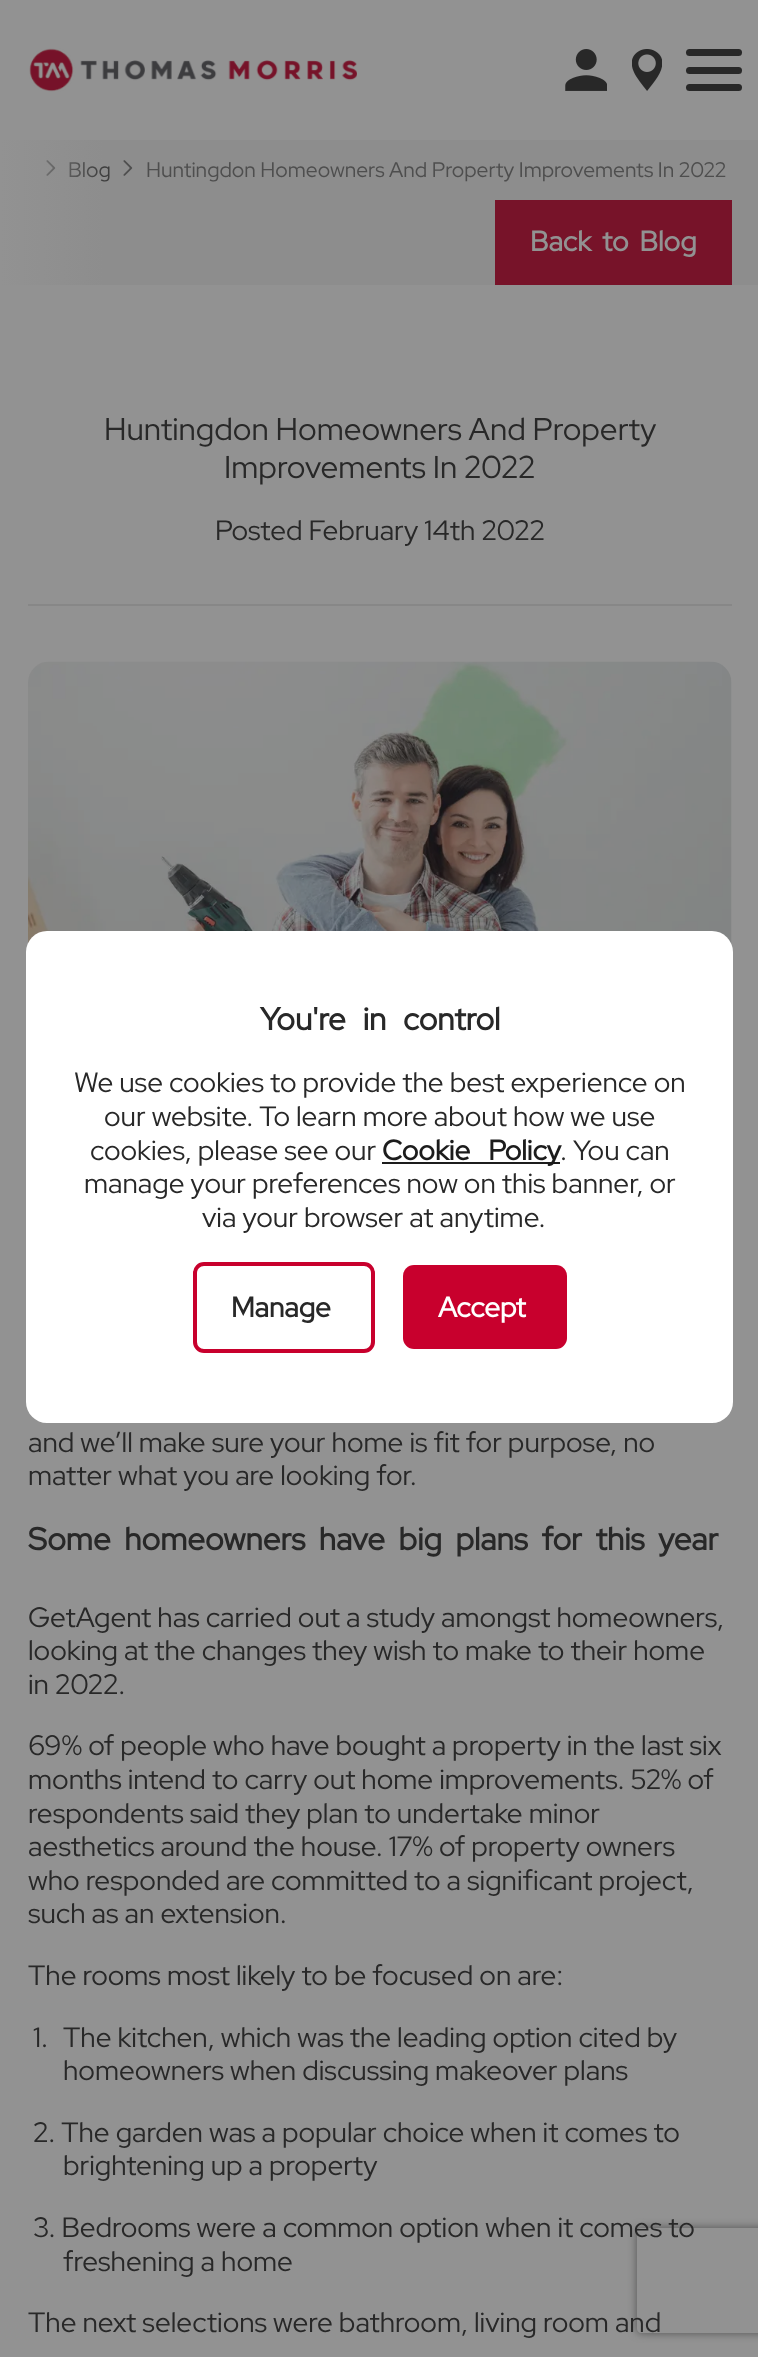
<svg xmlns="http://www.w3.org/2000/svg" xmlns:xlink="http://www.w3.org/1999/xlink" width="758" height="2357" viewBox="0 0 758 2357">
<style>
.cls-1{font:21px Red Hat Display;fill:#3e3e3e}
.cls-2{font:21px Red Hat Display;fill:#4e4e4e}
.cls-3{font:bold 28px Red Hat Display;fill:#929292}
.cls-4{font:31.5px Red Hat Display;fill:#282828}
.cls-5{font:28px Red Hat Display;fill:#282828}
.cls-6{font:bold 31.5px Red Hat Display;fill:#282828}
.cls-7{font:bold 28px Red Hat Display;fill:#1c1c1c}
.cls-8{font:bold 28px Red Hat Display;fill:#282828}
.cls-9{font:bold 28px Red Hat Display;fill:#ffffff}
</style>
<defs>
<clipPath id="clip1"><path d="M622 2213H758V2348H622ZM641 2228H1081C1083 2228 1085 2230 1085 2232V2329C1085 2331 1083 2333 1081 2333H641C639 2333 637 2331 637 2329V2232C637 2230 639 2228 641 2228Z" clip-rule="evenodd"/></clipPath>
<linearGradient id="g1" gradientUnits="userSpaceOnUse" x1="0" y1="213" x2="105" y2="213"><stop offset="0" stop-color="#929292"/><stop offset="1" stop-color="#929292" stop-opacity="0"/></linearGradient>
</defs>
<rect width="100%" height="100%" fill="#929292"/>
<image xlink:href="image0.png" x="29" y="48" width="328" height="44"/>
<image xlink:href="image1.png" x="565" y="49" width="42" height="42"/>
<image xlink:href="image2.png" x="632" y="49" width="30" height="42"/>
<rect fill="#282828" x="686" y="49" width="56" height="7" rx="3.5"/>
<rect fill="#282828" x="686" y="67" width="56" height="7" rx="3.5"/>
<rect fill="#282828" x="686" y="84" width="56" height="7" rx="3.5"/>
<rect fill="#8d8d8d" x="1" y="140" width="757" height="145"/>
<image xlink:href="image3.png" x="46" y="160" width="10" height="16"/>
<image xlink:href="image4.png" x="123" y="160" width="10" height="16"/>
<rect fill="#771329" x="495" y="200" width="237" height="85"/>
<rect fill="#878787" x="28" y="604" width="704" height="2"/>
<image xlink:href="image5.png" x="28" y="661" width="704" height="285"/>
<rect fill="#ffffff" x="26" y="931" width="707" height="492" rx="21"/>
<rect fill="#1c1c1c" x="382" y="1162" width="178" height="2"/>
<rect fill="none" stroke="#c8002d" stroke-width="4" x="195" y="1264" width="178" height="87" rx="9"/>
<rect fill="#c8002d" x="403" y="1265" width="164" height="84" rx="11"/>
<g clip-path="url(#clip1)">
<rect fill="#535353" filter="blur(4.5px)" x="637" y="2228" width="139" height="105" rx="4"/>
</g>
<text class="cls-1" x="68" y="177">Blog</text>
<rect fill="url(#g1)" x="1" y="140" width="101" height="145"/>
<text class="cls-2" x="146" y="177">Huntingdon Homeowners And Property Improvements In 2022</text>
<text class="cls-3" x="530" y="251" word-spacing="5">Back to Blog</text>
<text class="cls-4" x="104" y="440">Huntingdon Homeowners And Property</text>
<text class="cls-4" x="224" y="478">Improvements In 2022</text>
<text class="cls-5" x="215" y="540">Posted February 14th 2022</text>
<text class="cls-5"><tspan x="28" y="1452">and we’ll make sure your home is fit for purpose, no</tspan><tspan x="28" y="1485">matter what you are looking for.</tspan></text>
<text class="cls-6" x="28" y="1550" word-spacing="6.75">Some homeowners have big plans for this year</text>
<text class="cls-5"><tspan x="28" y="1627">GetAgent has carried out a study amongst homeowners,</tspan><tspan x="28" y="1660">looking at the changes they wish to make to their home</tspan><tspan x="28" y="1694">in 2022.</tspan></text>
<text class="cls-5"><tspan x="28" y="1755">69% of people who have bought a property in the last six</tspan><tspan x="28" y="1789">months intend to carry out home improvements. 52% of</tspan><tspan x="28" y="1823">respondents said they plan to undertake minor</tspan><tspan x="28" y="1856">aesthetics around the house. 17% of property owners</tspan><tspan x="28" y="1890">who responded are committed to a significant project,</tspan><tspan x="28" y="1923">such as an extension.</tspan></text>
<text class="cls-5" x="28" y="1985">The rooms most likely to be focused on are:</text>
<text class="cls-5" x="33" y="2047">1.</text>
<text class="cls-5"><tspan x="63" y="2047">The kitchen, which was the leading option cited by</tspan><tspan x="63" y="2080">homeowners when discussing makeover plans</tspan></text>
<text class="cls-5" x="33" y="2142">2. The garden was a popular choice when it comes to</text>
<text class="cls-5" x="63" y="2175">brightening up a property</text>
<text class="cls-5" x="33" y="2237">3. Bedrooms were a common option when it comes to</text>
<text class="cls-5" x="63" y="2271">freshening a home</text>
<text class="cls-5" x="28" y="2332">The next selections were bathroom, living room and</text>
<text class="cls-6" x="260" y="1030" word-spacing="10">You're in control</text>
<text class="cls-5" x="74" y="1092">We use cookies to provide the best experience on</text>
<text class="cls-5" x="104" y="1126">our website. To learn more about how we use</text>
<text class="cls-5" x="90" y="1160">cookies, please see our</text>
<text class="cls-7" x="382" y="1160" word-spacing="12">Cookie Policy</text>
<text class="cls-5" x="560" y="1160">. You can</text>
<text class="cls-5" x="84" y="1193">manage your preferences now on this banner, or</text>
<text class="cls-5" x="202" y="1227">via your browser at anytime.</text>
<text class="cls-8" x="231" y="1317">Manage</text>
<text class="cls-9" x="438" y="1317">Accept</text>
</svg>
